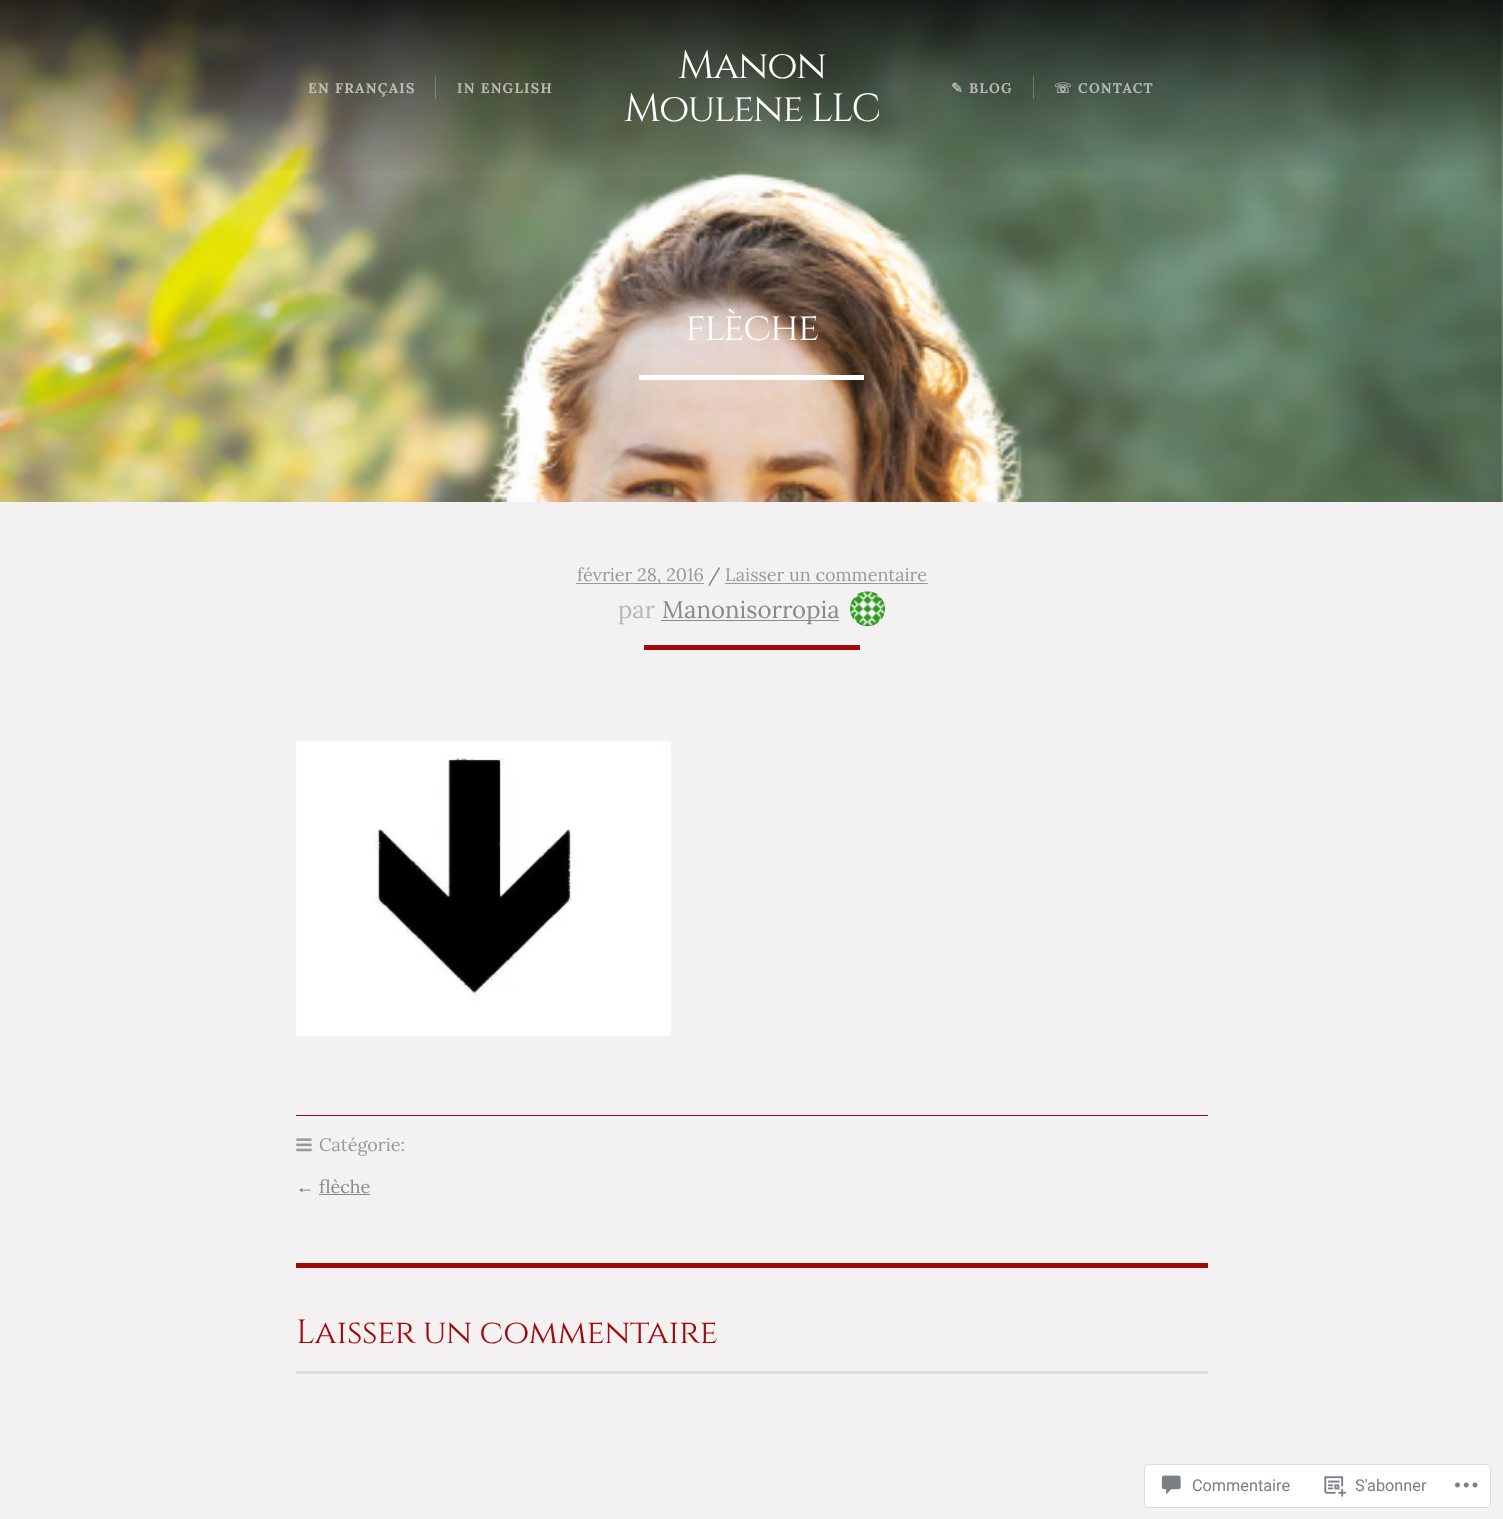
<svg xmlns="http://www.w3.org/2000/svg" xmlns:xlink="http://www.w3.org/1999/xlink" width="1503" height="1519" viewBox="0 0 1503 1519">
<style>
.cls-1{font:bold 14px Lora;letter-spacing:1.25px;fill:#bebeb9}
.cls-2{font:bold 14px Lora;letter-spacing:1.25px;fill:#b6bab1}
.cls-3{font:39.25px Cinzel;letter-spacing:-1.25px;fill:#ffffff}
.cls-4{font:bold 14px DejaVu Sans;letter-spacing:1.25px;fill:#b7b7b7}
.cls-5{font:bold 14px Lora;letter-spacing:1.25px;fill:#b7b7b7}
.cls-6{font:18px Lora;fill:#999999}
.cls-7{font:18px Lora;fill:#7a7979}
.cls-8{font:24px Lora;fill:#b7b7b7}
.cls-9{font:24px Lora;fill:#898989}
.cls-10{font:18px Liberation Serif;fill:#666666}
.cls-11{font:18px Lora;fill:#898989}
.cls-12{font:33.6px Cinzel;letter-spacing:-0.5px;fill:#a20a0a}
.cls-13{font:16.25px Roboto;fill:#7a7e84}
</style>
<defs>
<linearGradient id="g1" gradientUnits="userSpaceOnUse" x1="752" y1="0" x2="752" y2="176"><stop offset="0" stop-color="#000000" stop-opacity="0.8"/><stop offset="1" stop-color="#000000" stop-opacity="0"/></linearGradient>
</defs>
<rect width="100%" height="100%" fill="#f3f1f1"/>
<image xlink:href="image0.png" x="0" y="0" width="1503" height="502"/>
<rect fill="url(#g1)" x="0" y="0" width="1503" height="171"/>
<rect fill="#ffffff" fill-opacity="0.24" x="435" y="76" width="1" height="23"/>
<rect fill="#ffffff" fill-opacity="0.24" x="1033" y="76" width="1" height="23"/>
<rect fill="#ffffff" x="639" y="375" width="225" height="5"/>
<rect fill="#999999" x="576" y="583" width="128" height="1"/>
<rect fill="#999999" x="725" y="583" width="203" height="1"/>
<rect fill="#898989" x="661" y="620" width="178" height="1"/>
<circle fill="#ffffff" cx="867.5" cy="608.5" r="17.5"/>
<image xlink:href="image1.png" x="850" y="591" width="35" height="36"/>
<rect fill="#a20a0a" x="644" y="645" width="216" height="5"/>
<image xlink:href="image2.png" x="296" y="741" width="375" height="295"/>
<rect fill="#a20a0a" x="296" y="1115" width="912" height="1"/>
<image xlink:href="image3.png" x="296" y="1138" width="16" height="14"/>
<rect fill="#898989" x="319" y="1194" width="51" height="1"/>
<rect fill="#a20a0a" x="296" y="1263" width="912" height="5"/>
<rect fill="#dcdcde" x="296" y="1371" width="912" height="3"/>
<rect fill="#ffffff" stroke="#dcdcde" x="1144.5" y="1464.5" width="346" height="43" rx="3.5"/>
<image xlink:href="image4.png" x="1161" y="1475" width="20" height="20"/>
<image xlink:href="image5.png" x="1324" y="1476" width="22" height="21"/>
<image xlink:href="image6.png" x="1455" y="1482" width="23" height="6"/>
<text class="cls-1" x="308" y="93">EN FRANÇAIS</text>
<text class="cls-2" x="457" y="93">IN ENGLISH</text>
<text class="cls-3" x="678" y="78">Manon</text>
<text class="cls-3" x="624" y="121">Moulene LLC</text>
<text class="cls-4" x="951" y="93">✎</text>
<text class="cls-5" x="969" y="93">BLOG</text>
<text class="cls-4" x="1054" y="93">☏</text>
<text class="cls-5" x="1078" y="93">CONTACT</text>
<text class="cls-3" x="685" y="340">flèche</text>
<text class="cls-6" x="577" y="581">février 28, 2016</text>
<text class="cls-7" x="708" y="581">/</text>
<text class="cls-6" x="725" y="581">Laisser un commentaire</text>
<text class="cls-8" x="618" y="618">par</text>
<text class="cls-9" x="662" y="618">Manonisorropia</text>
<text class="cls-6" x="319" y="1151">Catégorie:</text>
<text class="cls-10" x="296" y="1193">←</text>
<text class="cls-11" x="319" y="1193">flèche</text>
<text class="cls-12" x="296" y="1343">Laisser un commentaire</text>
<text class="cls-13" x="1192" y="1491">Commentaire</text>
<text class="cls-13" x="1355" y="1491">S'abonner</text>
</svg>
